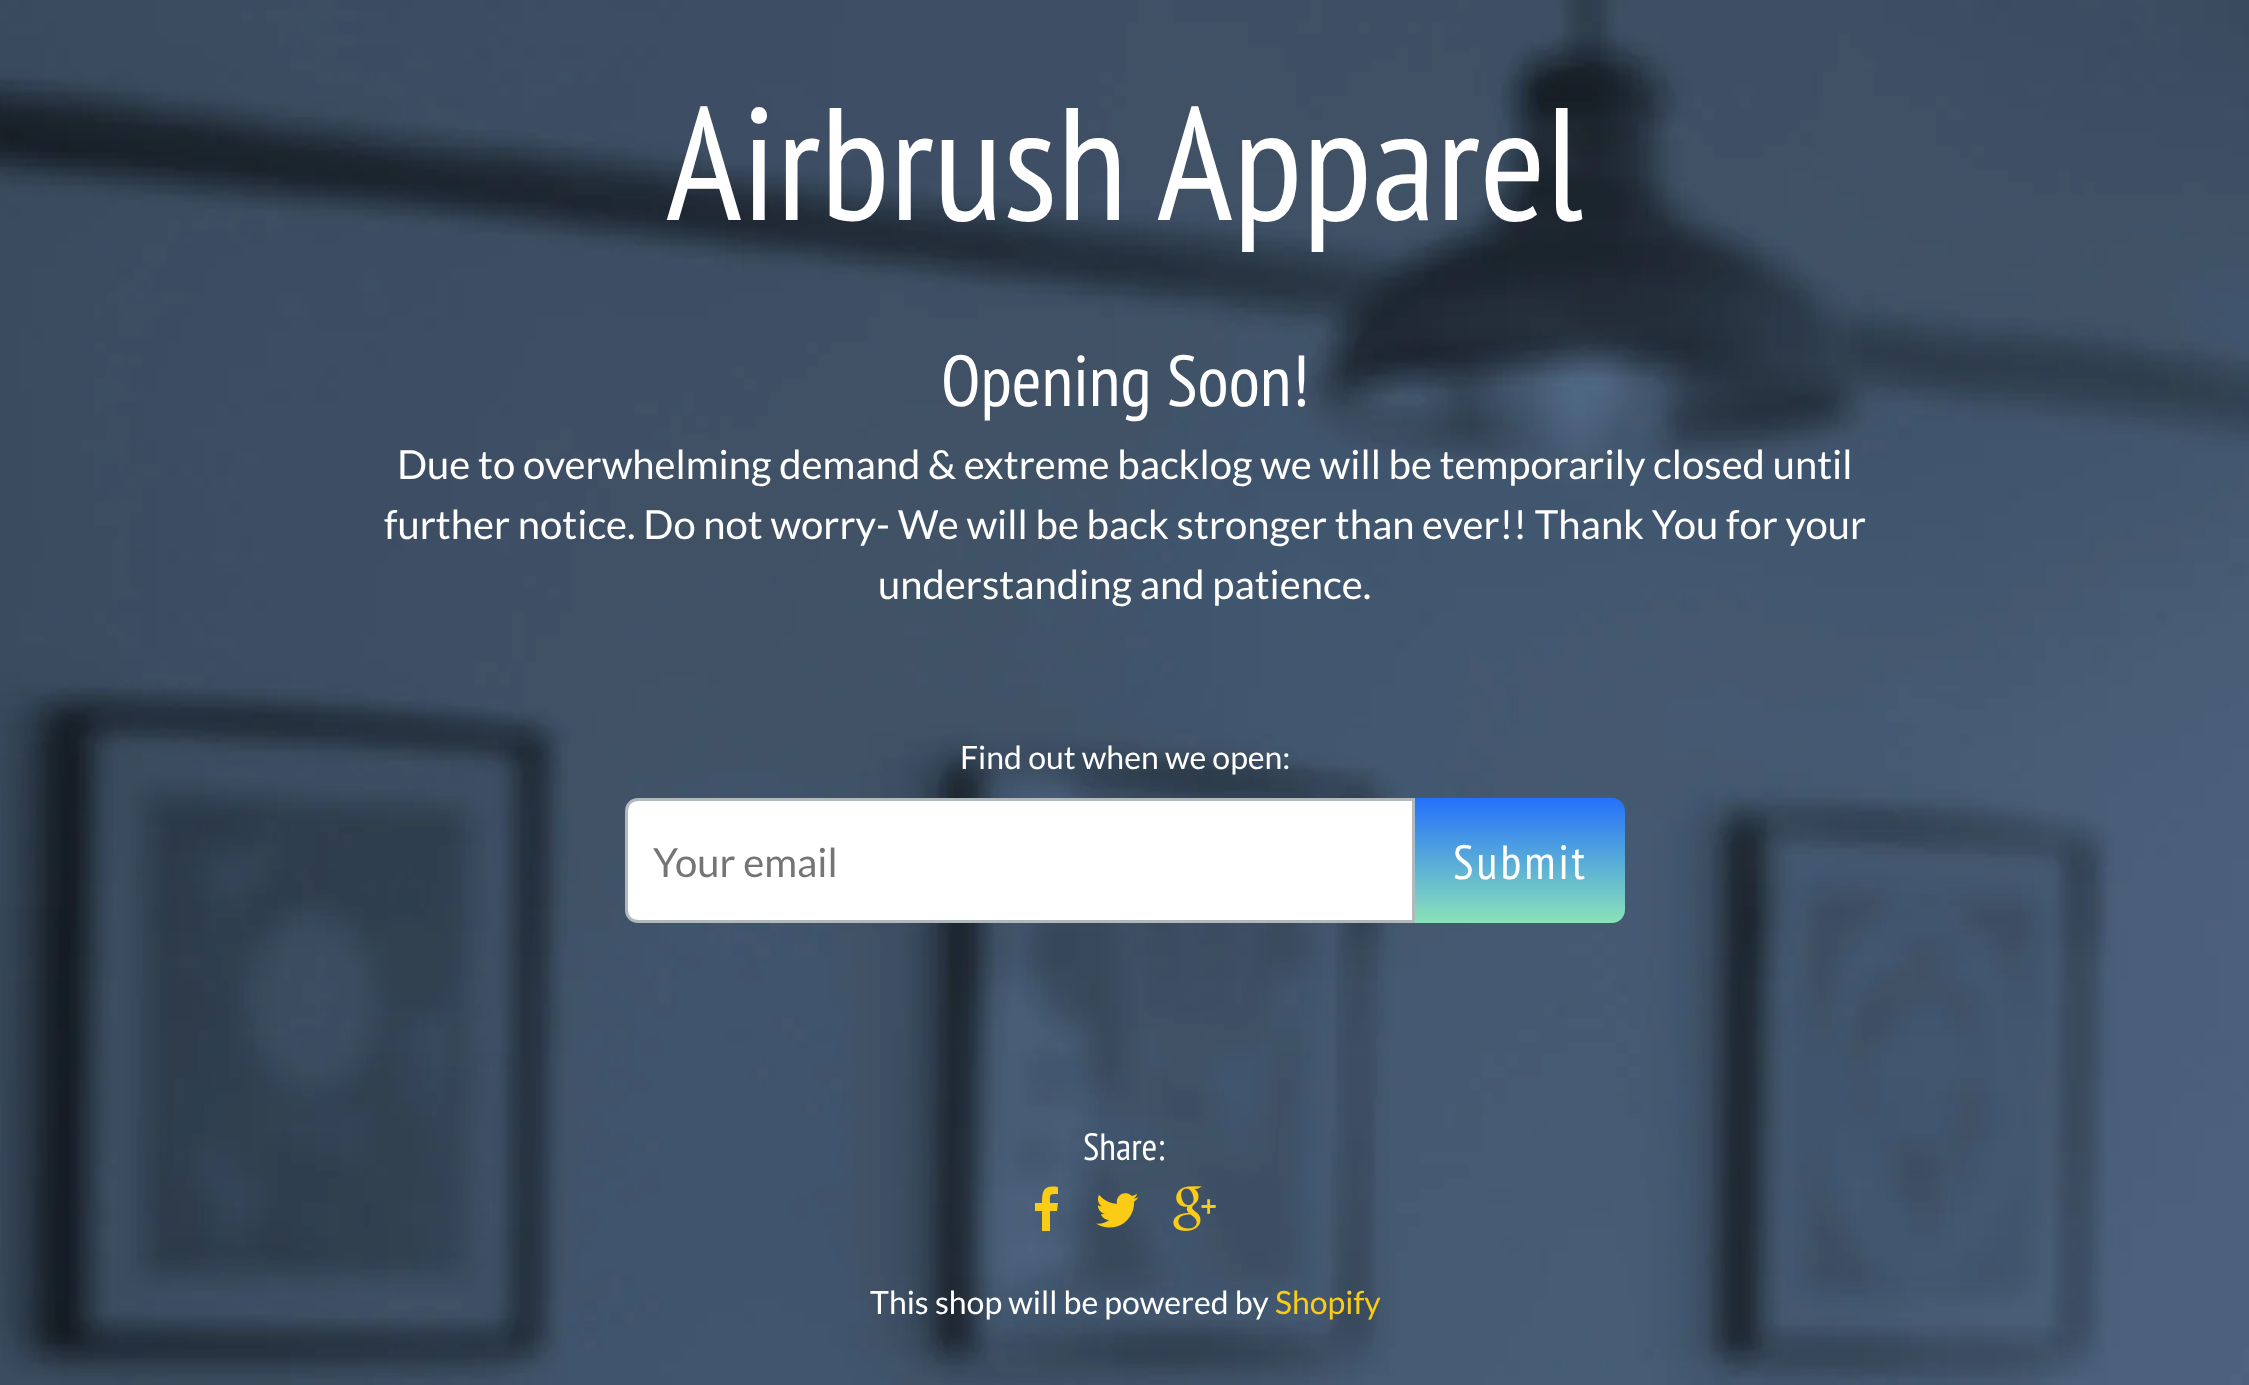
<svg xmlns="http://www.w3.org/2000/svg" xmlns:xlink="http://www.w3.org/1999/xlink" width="2249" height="1385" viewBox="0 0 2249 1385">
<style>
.cls-1{font:160px PT Sans Narrow;fill:#ffffff}
.cls-2{font:72px PT Sans Narrow;fill:#ffffff}
.cls-3{font:40px Lato;fill:#ffffff}
.cls-4{font:32px Lato;fill:#ffffff}
.cls-5{font:40px Lato;fill:#757575}
.cls-6{font:48px PT Sans Narrow;letter-spacing:3px;fill:#ffffff}
.cls-7{font:38px PT Sans Narrow;fill:#ffffff}
.cls-8{font:32px Lato;fill:#facc16}
</style>
<defs>
<linearGradient id="g1" gradientUnits="userSpaceOnUse" x1="1520" y1="798" x2="1520" y2="923"><stop offset="0" stop-color="#2471fb"/><stop offset="1" stop-color="#8ae3b8"/></linearGradient>
</defs>
<rect width="100%" height="100%" fill="#ffffff"/>
<image xlink:href="image0.png" x="0" y="0" width="2249" height="1385"/>
<path fill="#ffffff" stroke="#b2b9bd" stroke-width="3" d="M638 799.5H1413.5V921.5H638C631.5 921.5 626.5 916.5 626.5 910V811C626.5 804.5 631.5 799.5 638 799.5Z"/>
<path fill="url(#g1)" d="M1415 798H1612C1619 798 1625 804 1625 811V910C1625 917 1619 923 1612 923H1415Z"/>
<path fill="#facc16" d="M1058 1187V1194C1049 1194 1050 1194 1050 1203H1058L1057 1211H1050V1231H1042V1211H1035V1203H1042C1042 1190 1044 1185 1058 1187Z"/>
<image xlink:href="image1.png" x="1096" y="1193" width="43" height="35"/>
<image xlink:href="image2.png" x="1173" y="1186" width="43" height="45"/>
<text class="cls-1" x="666" y="220">Airbrush Apparel</text>
<text class="cls-2" x="941" y="406">Opening Soon!</text>
<text class="cls-3" x="397" y="479">Due to overwhelming demand &amp; extreme backlog we will be temporarily closed until</text>
<text class="cls-3" x="384" y="539">further notice. Do not worry- We will be back stronger than ever!! Thank You for your</text>
<text class="cls-3" x="878" y="599">understanding and patience.</text>
<text class="cls-4" x="960" y="769">Find out when we open:</text>
<text class="cls-5" x="653" y="877">Your email</text>
<text class="cls-6" x="1453" y="879">Submit</text>
<text class="cls-7" x="1083" y="1160">Share:</text>
<text class="cls-4" x="870" y="1314">This shop will be powered by</text>
<text class="cls-8" x="1275" y="1314">Shopify</text>
</svg>
